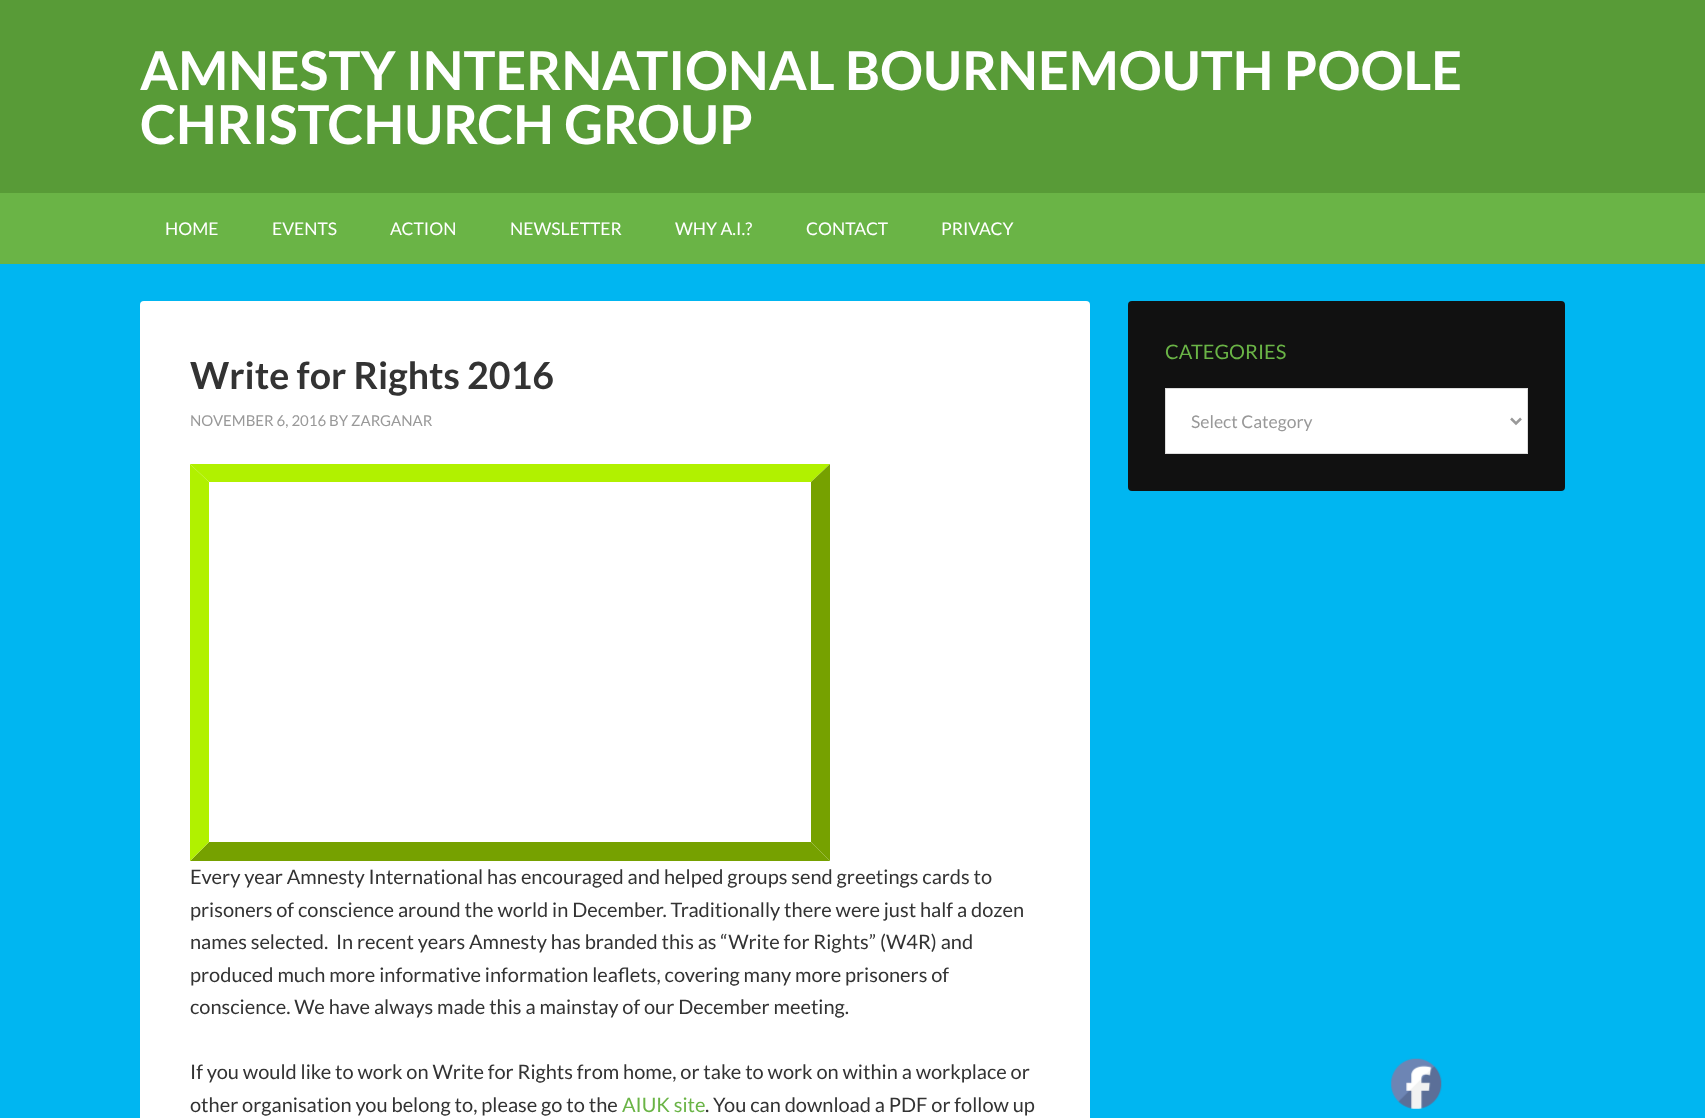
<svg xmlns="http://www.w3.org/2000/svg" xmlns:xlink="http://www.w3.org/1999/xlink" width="1705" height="1118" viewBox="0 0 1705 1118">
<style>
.cls-1{font:bold 53.75px Lato;fill:#ffffff}
.cls-2{font:17.5px Lato;fill:#ffffff}
.cls-3{font:bold 37.5px Lato;fill:#333333}
.cls-4{font:15px Lato;fill:#999999}
.cls-5{font:20px Lato;fill:#333333}
.cls-6{font:20px Lato;fill:#6ab446}
.cls-7{font:17.5px Lato;fill:#999999}
</style>
<rect width="100%" height="100%" fill="#00b6f1"/>
<rect fill="#589b37" x="0" y="0" width="1705" height="193"/>
<rect fill="#6ab446" x="0" y="193" width="1705" height="71"/>
<rect fill="#ffffff" x="140" y="301" width="950" height="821" rx="4"/>
<path fill="#b1f100" d="M190 464H830L811 482H209Z"/>
<path fill="#76a100" d="M830 464V861L811 842V482Z"/>
<path fill="#76a100" d="M830 861H190L209 842H811Z"/>
<path fill="#b1f100" d="M190 861V464L209 482V842Z"/>
<rect fill="#111111" x="1128" y="301" width="437" height="190" rx="4"/>
<rect fill="#ffffff" stroke="#dddddd" x="1165.5" y="388.5" width="362" height="65"/>
<path fill="none" stroke="#999999" stroke-width="2.5" d="M1511 418.5L1516 423.5L1521 418.5"/>
<image xlink:href="image0.png" x="1391" y="1058" width="51" height="51"/>
<text class="cls-1"><tspan x="140" y="90">AMNESTY INTERNATIONAL BOURNEMOUTH POOLE</tspan><tspan x="140" y="144">CHRISTCHURCH GROUP</tspan></text>
<text class="cls-2" x="165" y="235">HOME</text>
<text class="cls-2" x="272" y="235">EVENTS</text>
<text class="cls-2" x="390" y="235">ACTION</text>
<text class="cls-2" x="510" y="235">NEWSLETTER</text>
<text class="cls-2" x="675" y="235">WHY A.I.?</text>
<text class="cls-2" x="806" y="235">CONTACT</text>
<text class="cls-2" x="941" y="235">PRIVACY</text>
<text class="cls-3" x="190" y="389">Write for Rights 2016</text>
<text class="cls-4" x="190" y="426">NOVEMBER 6, 2016 BY ZARGANAR</text>
<text class="cls-5" xml:space="preserve"><tspan x="190" y="884">Every year Amnesty International has encouraged and helped groups send greetings cards to</tspan><tspan x="190" y="917">prisoners of conscience around the world in December. Traditionally there were just half a dozen</tspan><tspan x="190" y="949">names selected.  In recent years Amnesty has branded this as “Write for Rights” (W4R) and</tspan><tspan x="190" y="982">produced much more informative information leaflets, covering many more prisoners of</tspan><tspan x="190" y="1014">conscience. We have always made this a mainstay of our December meeting.</tspan></text>
<text class="cls-5"><tspan x="190" y="1079">If you would like to work on Write for Rights from home, or take to work on within a workplace or</tspan><tspan x="190" y="1112">other organisation you belong to, please go to the</tspan></text>
<text class="cls-6" x="622" y="1112">AIUK site</text>
<text class="cls-5" x="705" y="1112">. You can download a PDF or follow up</text>
<text class="cls-6" x="1165" y="359">CATEGORIES</text>
<text class="cls-7" x="1191" y="428">Select Category</text>
</svg>
